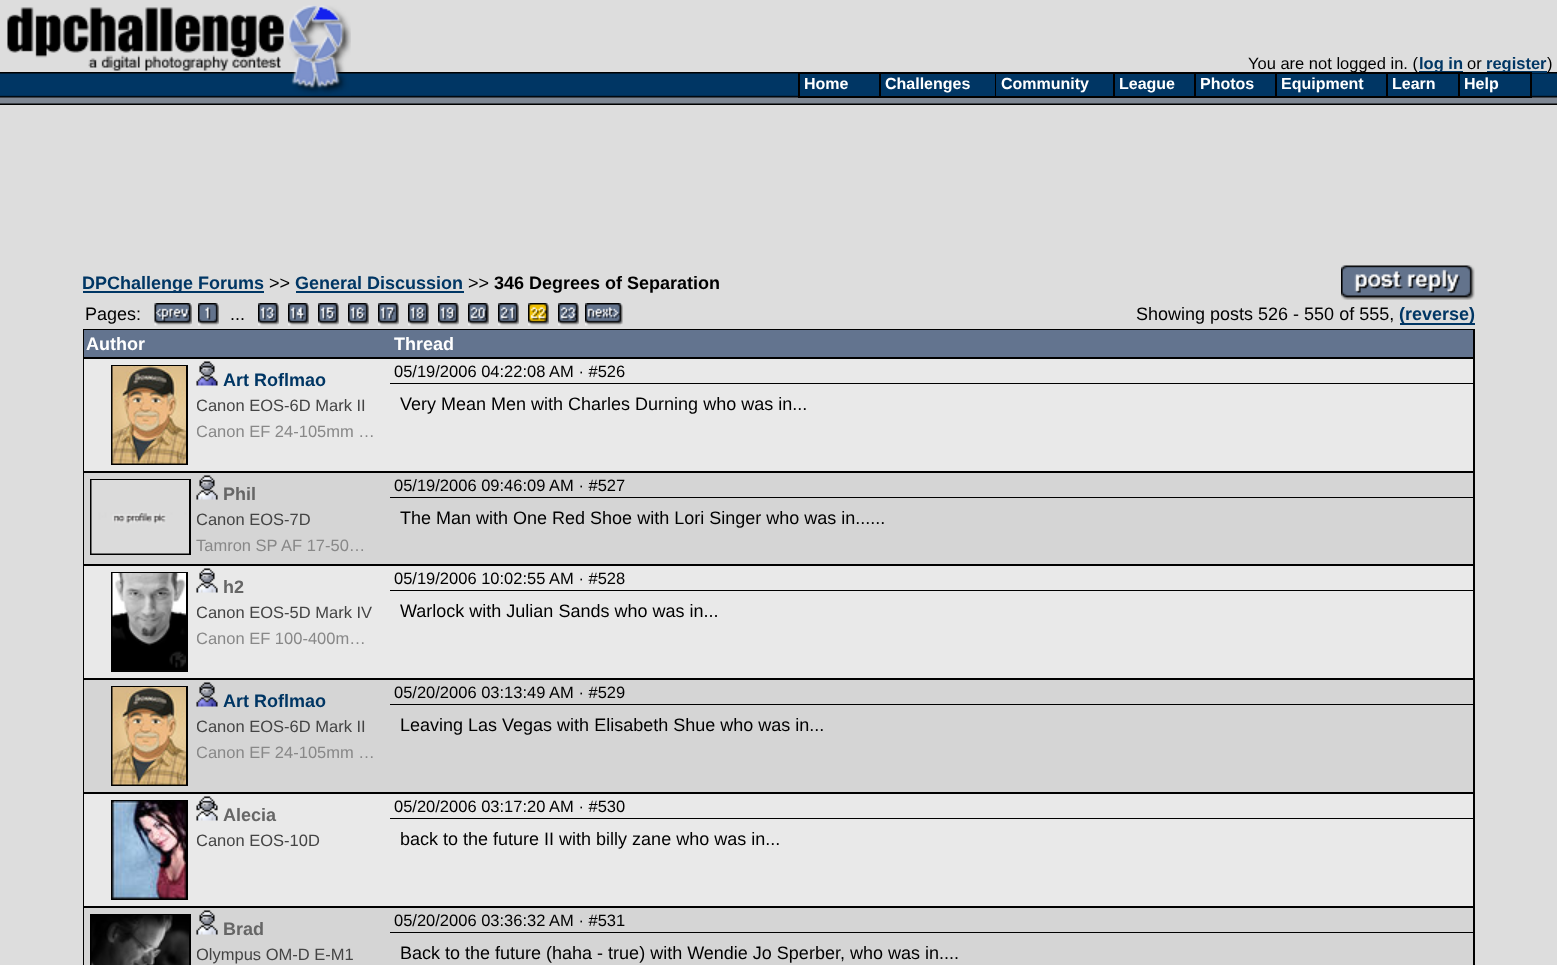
<svg xmlns="http://www.w3.org/2000/svg" xmlns:xlink="http://www.w3.org/1999/xlink" width="1557" height="965" viewBox="0 0 1557 965">
<style>
.cls-1{font:16.5px Liberation Sans;fill:#000000}
.cls-2{font:bold 16.5px Liberation Sans;fill:#003664}
.cls-3{font:bold 16px Liberation Sans;fill:#ffffff}
.cls-4{font:bold 18px Liberation Sans;fill:#003664}
.cls-5{font:18px Liberation Sans;fill:#000000}
.cls-6{font:bold 18px Liberation Sans;fill:#000000}
.cls-7{font:bold 18px Liberation Sans;fill:#ffffff}
.cls-8{font:16.5px Liberation Sans;fill:#444444}
.cls-9{font:16.5px Liberation Sans;fill:#888888}
.cls-10{font:bold 18px Liberation Sans;fill:#666666}
</style>
<defs>
<clipPath id="clip1"><rect x="197" y="396" width="180" height="26"/></clipPath>
<clipPath id="clip2"><rect x="197" y="422" width="180" height="25"/></clipPath>
<clipPath id="clip3"><rect x="197" y="510" width="180" height="26"/></clipPath>
<clipPath id="clip4"><rect x="197" y="603" width="180" height="26"/></clipPath>
<clipPath id="clip5"><rect x="197" y="629" width="180" height="25"/></clipPath>
<clipPath id="clip6"><rect x="197" y="717" width="180" height="26"/></clipPath>
<clipPath id="clip7"><rect x="197" y="743" width="180" height="25"/></clipPath>
<clipPath id="clip8"><rect x="197" y="831" width="180" height="26"/></clipPath>
<clipPath id="clip9"><rect x="197" y="945" width="180" height="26"/></clipPath>
</defs>
<rect width="100%" height="100%" fill="#dddddd"/>
<image xlink:href="image0.png" x="7" y="5" width="344" height="67"/>
<rect fill="#003664" x="1419" y="71" width="44" height="1"/>
<image xlink:href="image2.png" x="351" y="72" width="1206" height="33"/>
<rect fill="#003664" x="1487" y="71" width="60" height="2"/>
<image xlink:href="image1.png" x="0" y="72" width="351" height="33"/>
<rect fill="#003664" x="83" y="291" width="181" height="2"/>
<rect fill="#003664" x="296" y="291" width="168" height="2"/>
<image xlink:href="image3.png" x="1341" y="265" width="134" height="35"/>
<image xlink:href="image4.png" x="154" y="303" width="38" height="23"/>
<image xlink:href="image5.png" x="198" y="303" width="21" height="23"/>
<image xlink:href="image6.png" x="258" y="303" width="21" height="23"/>
<image xlink:href="image7.png" x="288" y="303" width="21" height="23"/>
<image xlink:href="image8.png" x="318" y="303" width="21" height="23"/>
<image xlink:href="image9.png" x="348" y="303" width="21" height="23"/>
<image xlink:href="image10.png" x="378" y="303" width="21" height="23"/>
<image xlink:href="image11.png" x="408" y="303" width="21" height="23"/>
<image xlink:href="image12.png" x="438" y="303" width="21" height="23"/>
<image xlink:href="image13.png" x="468" y="303" width="21" height="23"/>
<image xlink:href="image14.png" x="498" y="303" width="21" height="23"/>
<image xlink:href="image15.png" x="528" y="303" width="21" height="23"/>
<image xlink:href="image16.png" x="558" y="303" width="21" height="23"/>
<image xlink:href="image17.png" x="585" y="303" width="38" height="23"/>
<rect fill="#003664" x="1400" y="323" width="75" height="2"/>
<rect fill="#000000" x="83" y="329" width="1392" height="636"/>
<rect fill="#63748f" x="84" y="330" width="1389" height="27"/>
<rect fill="#e9e9e9" x="390" y="359" width="1083" height="24"/>
<rect fill="#e9e9e9" x="84" y="359" width="306" height="25"/>
<rect fill="#e9e9e9" x="84" y="384" width="1389" height="87"/>
<rect fill="none" stroke="#000000" stroke-width="2" x="112" y="366" width="75" height="98"/>
<image xlink:href="image18.png" x="112" y="366" width="74" height="98"/>
<image xlink:href="image19.png" x="196" y="361" width="22" height="25"/>
<rect fill="#d5d5d5" x="390" y="473" width="1083" height="24"/>
<rect fill="#d5d5d5" x="84" y="473" width="306" height="25"/>
<rect fill="#d5d5d5" x="84" y="498" width="1389" height="66"/>
<rect fill="none" stroke="#000000" stroke-width="2" x="91" y="480" width="99" height="74"/>
<image xlink:href="image20.png" x="91" y="480" width="98" height="74"/>
<image xlink:href="image21.png" x="196" y="475" width="22" height="25"/>
<rect fill="#e9e9e9" x="390" y="566" width="1083" height="24"/>
<rect fill="#e9e9e9" x="84" y="566" width="306" height="25"/>
<rect fill="#e9e9e9" x="84" y="591" width="1389" height="87"/>
<rect fill="none" stroke="#000000" stroke-width="2" x="112" y="573" width="75" height="98"/>
<image xlink:href="image22.png" x="112" y="573" width="74" height="97"/>
<image xlink:href="image23.png" x="196" y="568" width="22" height="25"/>
<rect fill="#d5d5d5" x="390" y="680" width="1083" height="24"/>
<rect fill="#d5d5d5" x="84" y="680" width="306" height="25"/>
<rect fill="#d5d5d5" x="84" y="705" width="1389" height="87"/>
<rect fill="none" stroke="#000000" stroke-width="2" x="112" y="687" width="75" height="98"/>
<image xlink:href="image18.png" x="112" y="687" width="74" height="98"/>
<image xlink:href="image24.png" x="196" y="682" width="22" height="25"/>
<rect fill="#e9e9e9" x="390" y="794" width="1083" height="24"/>
<rect fill="#e9e9e9" x="84" y="794" width="306" height="25"/>
<rect fill="#e9e9e9" x="84" y="819" width="1389" height="87"/>
<rect fill="none" stroke="#000000" stroke-width="2" x="112" y="801" width="75" height="98"/>
<image xlink:href="image25.png" x="112" y="801" width="74" height="98"/>
<image xlink:href="image26.png" x="196" y="796" width="22" height="25"/>
<rect fill="#d5d5d5" x="390" y="908" width="1083" height="24"/>
<rect fill="#d5d5d5" x="84" y="908" width="306" height="25"/>
<rect fill="#d5d5d5" x="84" y="933" width="1389" height="32"/>
<rect fill="none" stroke="#000000" stroke-width="2" x="91" y="915" width="99" height="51"/>
<image xlink:href="image27.png" x="91" y="915" width="98" height="50"/>
<image xlink:href="image21.png" x="196" y="910" width="22" height="25"/>
<text class="cls-1" x="1248" y="69">You are not logged in. (</text>
<text class="cls-2" x="1419" y="69">log in</text>
<text class="cls-1" x="1467" y="69">or</text>
<text class="cls-2" x="1486" y="69">register</text>
<text class="cls-1" x="1547" y="69">)</text>
<rect fill="#000000" x="798" y="72" width="734" height="26"/>
<rect fill="#003664" x="800" y="74" width="79" height="22"/>
<text class="cls-3" x="804" y="89">Home</text>
<rect fill="#003664" x="881" y="74" width="114" height="22"/>
<text class="cls-3" x="885" y="89">Challenges</text>
<rect fill="#003664" x="996" y="74" width="117" height="22"/>
<text class="cls-3" x="1001" y="89">Community</text>
<rect fill="#003664" x="1115" y="74" width="79" height="22"/>
<text class="cls-3" x="1119" y="89">League</text>
<rect fill="#003664" x="1196" y="74" width="79" height="22"/>
<text class="cls-3" x="1200" y="89">Photos</text>
<rect fill="#003664" x="1277" y="74" width="109" height="22"/>
<text class="cls-3" x="1281" y="89">Equipment</text>
<rect fill="#003664" x="1388" y="74" width="70" height="22"/>
<text class="cls-3" x="1392" y="89">Learn</text>
<rect fill="#003664" x="1460" y="74" width="70" height="22"/>
<text class="cls-3" x="1464" y="89">Help</text>
<text class="cls-4" x="82" y="289">DPChallenge Forums</text>
<text class="cls-5" x="269" y="289">&gt;&gt;</text>
<text class="cls-4" x="295" y="289">General Discussion</text>
<text class="cls-5" x="468" y="289">&gt;&gt;</text>
<text class="cls-6" x="494" y="289">346 Degrees of Separation</text>
<text class="cls-5" x="85" y="320">Pages:</text>
<text class="cls-5" x="230" y="320">...</text>
<text class="cls-5" x="1136" y="320">Showing posts 526 - 550 of 555,</text>
<text class="cls-4" x="1399" y="320">(reverse)</text>
<text class="cls-7" x="86" y="350">Author</text>
<text class="cls-7" x="394" y="350">Thread</text>
<text class="cls-4" x="223" y="386">Art Roflmao</text>
<g clip-path="url(#clip1)">
<text class="cls-8" x="196" y="411">Canon EOS-6D Mark II</text>
</g>
<g clip-path="url(#clip2)">
<text class="cls-9" x="196" y="437">Canon EF 24-105mm …</text>
</g>
<text class="cls-1" x="394" y="377">05/19/2006 04:22:08 AM · #526</text>
<text class="cls-5" x="400" y="410">Very Mean Men with Charles Durning who was in...</text>
<text class="cls-10" x="223" y="500">Phil</text>
<g clip-path="url(#clip3)">
<text class="cls-8" x="196" y="525">Canon EOS-7D</text>
</g>
<text class="cls-9" x="196" y="551">Tamron SP AF 17-50…</text>
<text class="cls-1" x="394" y="491">05/19/2006 09:46:09 AM · #527</text>
<text class="cls-5" x="400" y="524">The Man with One Red Shoe with Lori Singer who was in......</text>
<text class="cls-10" x="223" y="593">h2</text>
<g clip-path="url(#clip4)">
<text class="cls-8" x="196" y="618">Canon EOS-5D Mark IV</text>
</g>
<g clip-path="url(#clip5)">
<text class="cls-9" x="196" y="644">Canon EF 100-400m…</text>
</g>
<text class="cls-1" x="394" y="584">05/19/2006 10:02:55 AM · #528</text>
<text class="cls-5" x="400" y="617">Warlock with Julian Sands who was in...</text>
<text class="cls-4" x="223" y="707">Art Roflmao</text>
<g clip-path="url(#clip6)">
<text class="cls-8" x="196" y="732">Canon EOS-6D Mark II</text>
</g>
<g clip-path="url(#clip7)">
<text class="cls-9" x="196" y="758">Canon EF 24-105mm …</text>
</g>
<text class="cls-1" x="394" y="698">05/20/2006 03:13:49 AM · #529</text>
<text class="cls-5" x="400" y="731">Leaving Las Vegas with Elisabeth Shue who was in...</text>
<text class="cls-10" x="223" y="821">Alecia</text>
<g clip-path="url(#clip8)">
<text class="cls-8" x="196" y="846">Canon EOS-10D</text>
</g>
<text class="cls-1" x="394" y="812">05/20/2006 03:17:20 AM · #530</text>
<text class="cls-5" x="400" y="845">back to the future II with billy zane who was in...</text>
<text class="cls-10" x="223" y="935">Brad</text>
<g clip-path="url(#clip9)">
<text class="cls-8" x="196" y="960">Olympus OM-D E-M1</text>
</g>
<text class="cls-1" x="394" y="926">05/20/2006 03:36:32 AM · #531</text>
<text class="cls-5" x="400" y="959">Back to the future (haha - true) with Wendie Jo Sperber, who was in....</text>
</svg>
